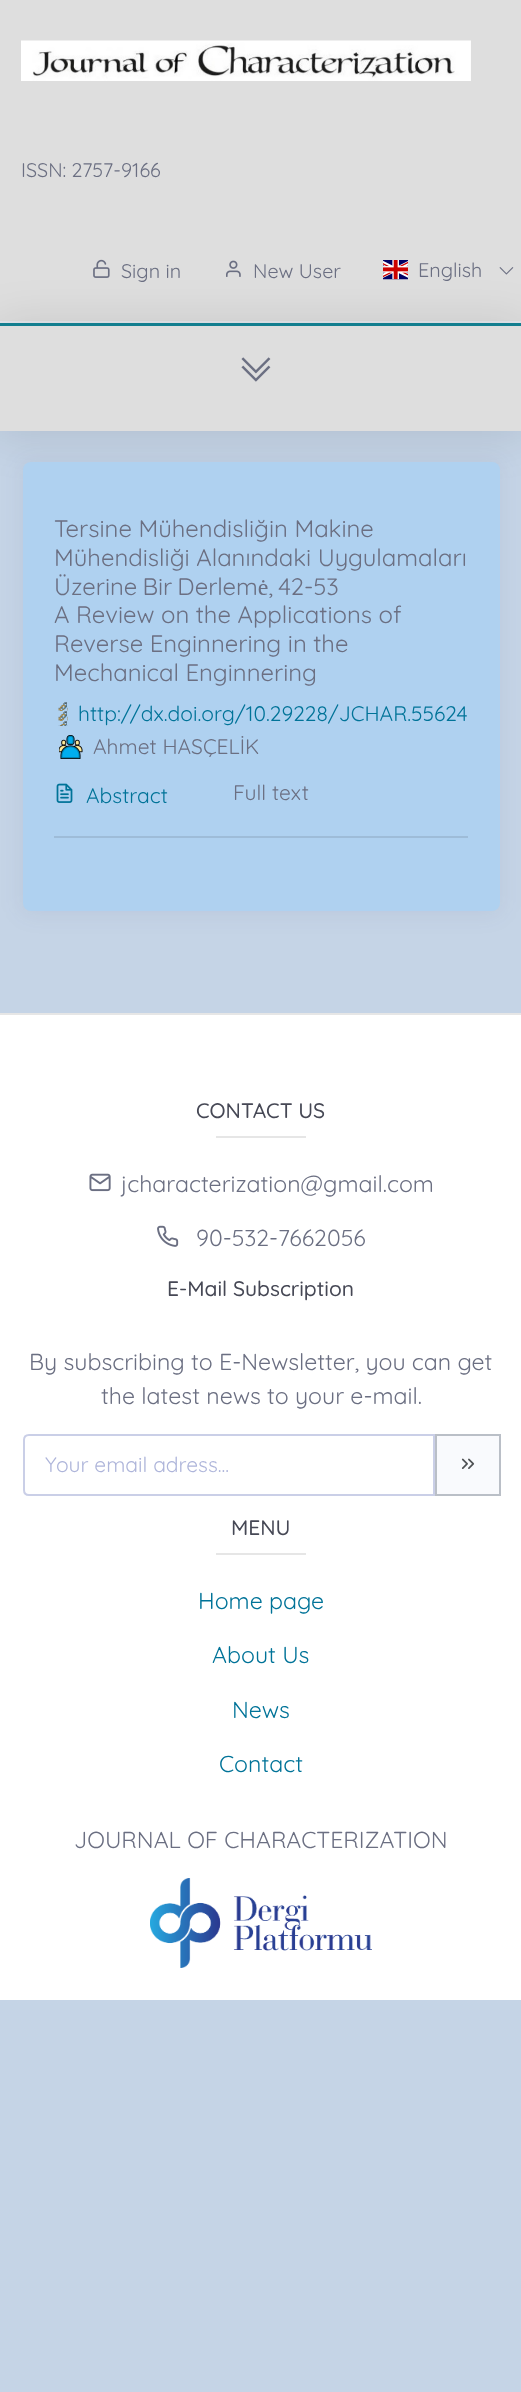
<svg xmlns="http://www.w3.org/2000/svg" xmlns:xlink="http://www.w3.org/1999/xlink" width="521" height="2392" viewBox="0 0 521 2392">
<style>
.cls-1{font:19.75px Quicksand;fill:#6b6f82}
.cls-2{font:23.9px Quicksand;fill:#6b6f82}
.cls-3{font:21px Quicksand;fill:#007398}
.cls-4{font:21px Quicksand;fill:#6b6f82}
.cls-5{font:500 21px Quicksand;fill:#464855}
.cls-6{font:23.1px Quicksand;fill:#6b6f82}
.cls-7{font:21px Quicksand;fill:#aeb5da}
.cls-8{font:23.1px Quicksand;fill:#007398}
</style>
<rect width="100%" height="100%" fill="#c5d4e6"/>
<rect fill="#e4e7ed" x="0" y="321" width="521" height="2"/>
<rect fill="#dedede" x="0" y="0" width="521" height="321"/>
<image xlink:href="image0.png" x="21" y="40" width="450" height="41"/>
<rect fill="#000000" fill-opacity="0.1" filter="blur(22.5px)" x="-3" y="323" width="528" height="114"/>
<image xlink:href="image1.png" x="93" y="259" width="17" height="19"/>
<image xlink:href="image2.png" x="226" y="260" width="15" height="17"/>
<image xlink:href="image3.png" x="383" y="260" width="25" height="20"/>
<image xlink:href="image4.png" x="499" y="267" width="15" height="8"/>
<rect fill="#dedede" x="0" y="326" width="521" height="105"/>
<rect fill="#127e8f" x="0" y="323" width="521" height="3"/>
<image xlink:href="image5.png" x="241" y="357" width="30" height="25"/>
<rect fill="#3e396b" fill-opacity="0.07" filter="blur(11px)" x="21" y="462" width="480" height="452" rx="9"/>
<rect fill="#afd1f0" x="23" y="462" width="477" height="449" rx="8"/>
<image xlink:href="image6.png" x="58" y="702" width="10" height="24"/>
<image xlink:href="image7.png" x="59" y="735" width="24" height="24"/>
<image xlink:href="image8.png" x="56" y="783" width="17" height="20"/>
<rect fill="#9ebcd8" x="54" y="836" width="414" height="2"/>
<rect fill="#ffffff" x="0" y="1015" width="521" height="985"/>
<rect fill="#e6e6e6" x="0" y="1013" width="521" height="2"/>
<rect fill="#e6e6e6" x="216" y="1136" width="90" height="2"/>
<image xlink:href="image9.png" x="89" y="1173" width="22" height="19"/>
<image xlink:href="image10.png" x="157" y="1225" width="22" height="22"/>
<path fill="none" stroke="#cacfe7" stroke-width="2" d="M29 1435H434V1495H29C26 1495 24 1493 24 1490V1440C24 1437 26 1435 29 1435Z"/>
<rect fill="#f9fafd" stroke="#babfc7" stroke-width="2" x="436" y="1435" width="64" height="60"/>
<image xlink:href="image11.png" x="461" y="1458" width="14" height="11"/>
<rect fill="#e6e6e6" x="216" y="1553" width="90" height="2"/>
<image xlink:href="image12.png" x="150" y="1878" width="222" height="90"/>
<text class="cls-1" x="21" y="177">ISSN: 2757-9166</text>
<text class="cls-1" x="121" y="278">Sign in</text>
<text class="cls-1" x="253" y="278">New User</text>
<text class="cls-1" x="418" y="277">English</text>
<text class="cls-2"><tspan x="54" y="537">Tersine Mühendisliğin Makine</tspan><tspan x="54" y="566">Mühendisliği Alanındaki Uygulamaları</tspan><tspan x="54" y="595" word-spacing="-1.5">Üzerine Bir Derlemė, 42-53</tspan><tspan x="54" y="623">A Review on the Applications of</tspan><tspan x="54" y="652">Reverse Enginnering in the</tspan><tspan x="54" y="681">Mechanical Enginnering</tspan></text>
<text class="cls-3" x="78" y="721">http://dx.doi.org/10.29228/JCHAR.55624</text>
<text class="cls-4" x="93" y="754">Ahmet HASÇELİK</text>
<text class="cls-3" x="86" y="803">Abstract</text>
<text class="cls-4" x="233" y="800">Full text</text>
<text class="cls-5" x="196" y="1118">CONTACT US</text>
<text class="cls-6" x="121" y="1192">jcharacterization@gmail.com</text>
<text class="cls-6" x="196" y="1246">90-532-7662056</text>
<text class="cls-5" x="167" y="1296">E-Mail Subscription</text>
<text class="cls-6" x="29" y="1370">By subscribing to E-Newsletter, you can get</text>
<text class="cls-6" x="101" y="1404">the latest news to your e-mail.</text>
<text class="cls-7" x="45" y="1472">Your email adress...</text>
<text class="cls-5" x="231" y="1535">MENU</text>
<text class="cls-8" x="198" y="1609">Home page</text>
<text class="cls-8" x="212" y="1663">About Us</text>
<text class="cls-8" x="232" y="1718">News</text>
<text class="cls-8" x="219" y="1772">Contact</text>
<text class="cls-6" x="74" y="1848">JOURNAL OF CHARACTERIZATION</text>
</svg>
